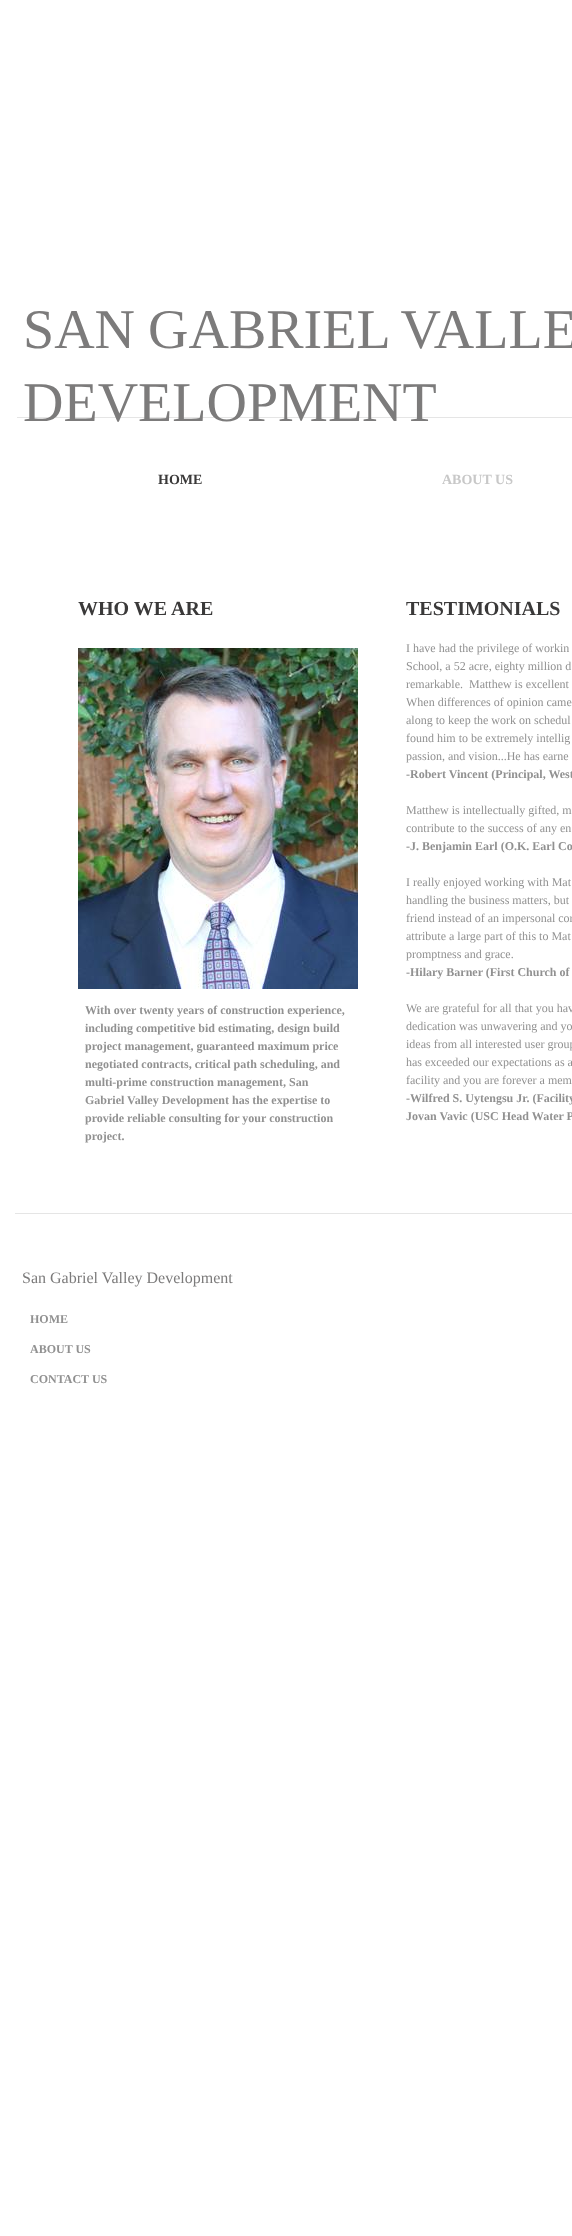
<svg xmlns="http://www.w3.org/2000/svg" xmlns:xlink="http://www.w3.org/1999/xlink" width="572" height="2236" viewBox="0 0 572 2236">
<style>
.cls-1{font:56px Liberation Serif;fill:#7c7b7b}
.cls-2{font:bold 14px Liberation Serif;fill:#3a3939}
.cls-3{font:bold 14px Liberation Serif;fill:#c8c8c8}
.cls-4{font:bold 20px Liberation Serif;fill:#3a3939}
.cls-5{font:12px Liberation Serif;fill:#919191}
.cls-6{font:bold 12px Liberation Serif;fill:#919191}
.cls-7{font:16px Liberation Serif;fill:#7c7b7b}
</style>
<rect width="100%" height="100%" fill="#ffffff"/>
<rect fill="#e5e5e5" x="17" y="417" width="555" height="1"/>
<image xlink:href="image0.png" x="78" y="648" width="280" height="341"/>
<rect fill="#e5e5e5" x="15" y="1213" width="557" height="1"/>
<text class="cls-1"><tspan x="23" y="348" word-spacing="-1">SAN GABRIEL VALLE</tspan><tspan x="23" y="421">DEVELOPMENT</tspan></text>
<text class="cls-2" x="158" y="484">HOME</text>
<text class="cls-3" x="442" y="484">ABOUT US</text>
<text class="cls-4" x="78" y="615">WHO WE ARE</text>
<text class="cls-4" x="406" y="615">TESTIMONIALS</text>
<text class="cls-5" xml:space="preserve"><tspan x="406" y="652">I have had the privilege of workin</tspan><tspan x="406" y="670">School, a 52 acre, eighty million d</tspan><tspan x="406" y="688">remarkable.  Matthew is excellent</tspan><tspan x="406" y="706">When differences of opinion came</tspan><tspan x="406" y="724">along to keep the work on schedul</tspan><tspan x="406" y="742">found him to be extremely intellig</tspan><tspan x="406" y="760">passion, and vision...He has earne</tspan></text>
<text class="cls-6" x="406" y="778">-Robert Vincent (Principal, West</text>
<text class="cls-5"><tspan x="406" y="814">Matthew is intellectually gifted, m</tspan><tspan x="406" y="832">contribute to the success of any en</tspan></text>
<text class="cls-6" x="406" y="850">-J. Benjamin Earl (O.K. Earl Co</text>
<text class="cls-5"><tspan x="406" y="886">I really enjoyed working with Mat</tspan><tspan x="406" y="904">handling the business matters, but</tspan><tspan x="406" y="922">friend instead of an impersonal cor</tspan><tspan x="406" y="940">attribute a large part of this to Mat</tspan><tspan x="406" y="958">promptness and grace.</tspan></text>
<text class="cls-6" x="406" y="976">-Hilary Barner (First Church of</text>
<text class="cls-5"><tspan x="406" y="1012">We are grateful for all that you hav</tspan><tspan x="406" y="1030">dedication was unwavering and yo</tspan><tspan x="406" y="1048">ideas from all interested user group</tspan><tspan x="406" y="1066">has exceeded our expectations as a</tspan><tspan x="406" y="1084">facility and you are forever a mem</tspan></text>
<text class="cls-6"><tspan x="406" y="1102">-Wilfred S. Uytengsu Jr. (Facility</tspan><tspan x="406" y="1120">Jovan Vavic (USC Head Water P</tspan></text>
<text class="cls-6"><tspan x="85" y="1014">With over twenty years of construction experience,</tspan><tspan x="85" y="1032">including competitive bid estimating, design build</tspan><tspan x="85" y="1050">project management, guaranteed maximum price</tspan><tspan x="85" y="1068">negotiated contracts, critical path scheduling, and</tspan><tspan x="85" y="1086">multi-prime construction management, San</tspan><tspan x="85" y="1104">Gabriel Valley Development has the expertise to</tspan><tspan x="85" y="1122">provide reliable consulting for your construction</tspan><tspan x="85" y="1140">project.</tspan></text>
<text class="cls-7" x="22" y="1283">San Gabriel Valley Development</text>
<text class="cls-6" x="30" y="1323">HOME</text>
<text class="cls-6" x="30" y="1353">ABOUT US</text>
<text class="cls-6" x="30" y="1383">CONTACT US</text>
</svg>
